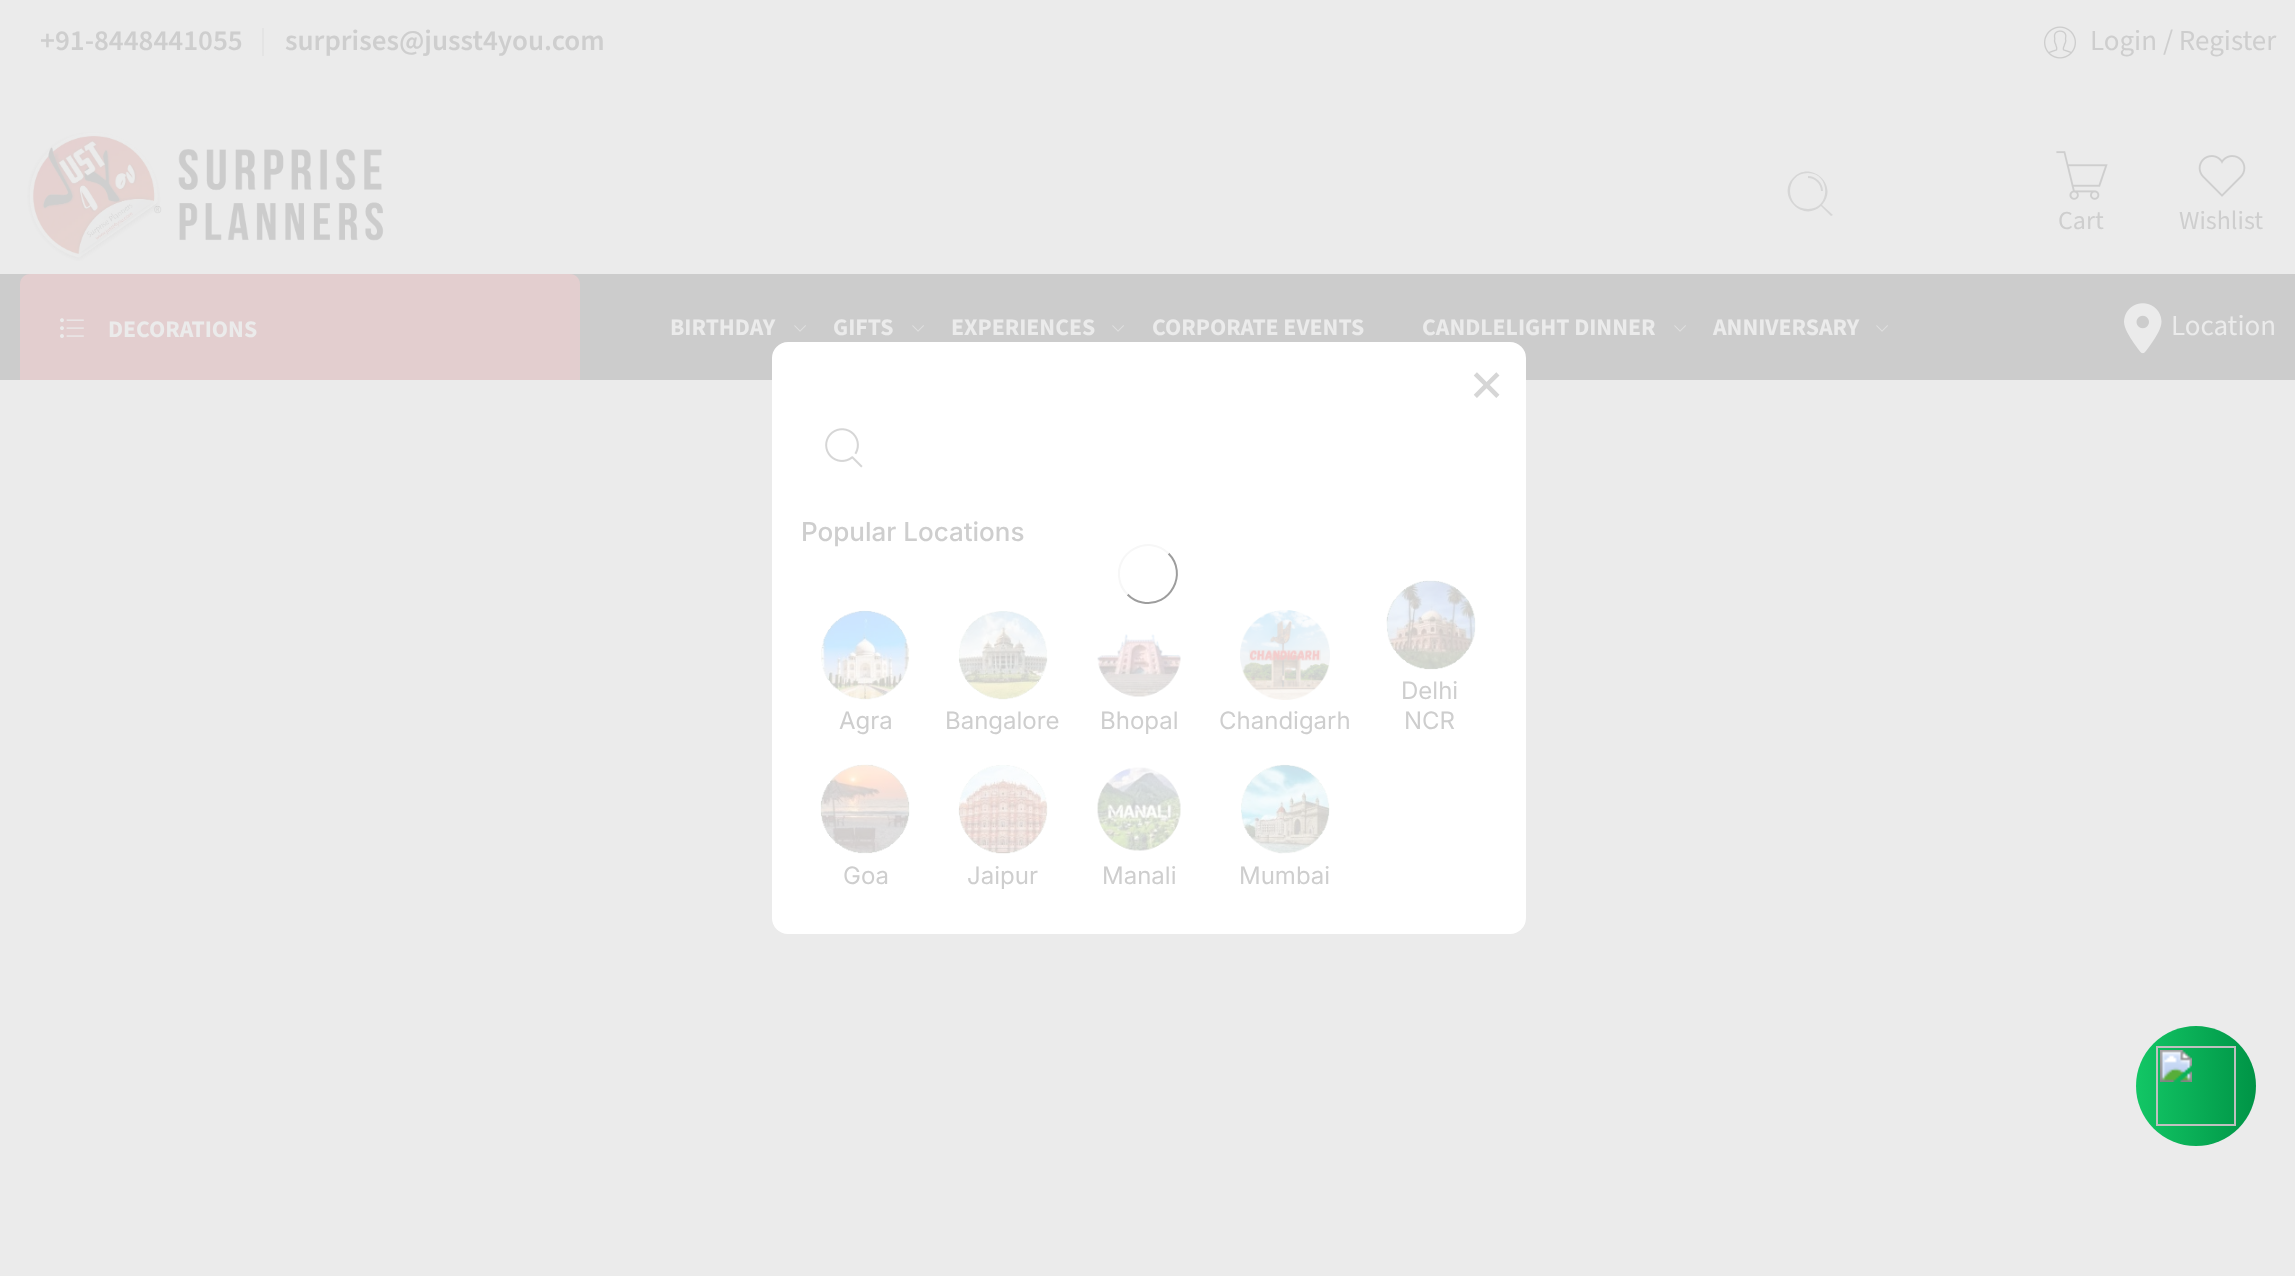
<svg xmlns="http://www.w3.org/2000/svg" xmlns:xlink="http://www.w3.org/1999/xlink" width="2295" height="1276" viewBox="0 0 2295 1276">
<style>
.cls-1{font:600 29px Mada;fill:#cecece}
.cls-2{font:29px Mada;fill:#cecece}
.cls-3{font:26px Mada;fill:#cecece}
.cls-4{font:bold 23.75px Mada;fill:#ebebeb}
.cls-5{font:29px Mada;fill:#ebebeb}
.cls-6{font:56px Inter;fill:#d6d6d6}
.cls-7{font:500 26px Inter;fill:#cecece}
.cls-8{font:24px Inter;fill:#cecece}
</style>
<rect width="100%" height="100%" fill="#ebebeb"/>
<rect fill="#e4e4e4" x="262" y="28" width="2" height="28"/>
<image xlink:href="image0.png" x="2044" y="26" width="32" height="33"/>
<image xlink:href="image1.png" x="27" y="132" width="357" height="129"/>
<path fill="#d6d6d6" d="M1833 215L1831 216L1821 206C1803 223 1776 196 1793 178C1810 159 1840 185 1822 205ZM1808 209C1831 209 1831 173 1808 173C1784 173 1784 209 1808 209ZM1808 176C1816 176 1823 183 1823 191H1821C1821 184 1815 178 1808 178Z"/>
<image xlink:href="image2.png" x="2056" y="151" width="52" height="49"/>
<image xlink:href="image3.png" x="2198" y="155" width="48" height="42"/>
<rect fill="#cccccc" x="0" y="274" width="2295" height="106"/>
<path fill="#e3cecf" d="M30 274H570C575.5 274 580 278.5 580 284V380H20V284C20 278.5 24.5 274 30 274Z"/>
<image xlink:href="image4.png" x="60" y="318" width="24" height="20"/>
<image xlink:href="image5.png" x="794" y="325" width="12" height="7"/>
<image xlink:href="image5.png" x="912" y="325" width="12" height="7"/>
<image xlink:href="image5.png" x="1112" y="325" width="12" height="7"/>
<image xlink:href="image5.png" x="1674" y="325" width="12" height="7"/>
<image xlink:href="image5.png" x="1876" y="325" width="12" height="7"/>
<image xlink:href="image6.png" x="2124" y="303" width="38" height="51"/>
<rect fill="#ffffff" x="772" y="342" width="754" height="592" rx="16"/>
<image xlink:href="image7.png" x="825" y="428" width="38" height="40"/>
<image xlink:href="image8.png" x="821" y="610" width="89" height="90"/>
<image xlink:href="image9.png" x="958" y="611" width="90" height="89"/>
<image xlink:href="image10.png" x="1097" y="634" width="84" height="63"/>
<image xlink:href="image11.png" x="1240" y="610" width="90" height="90"/>
<image xlink:href="image12.png" x="1386" y="580" width="90" height="90"/>
<image xlink:href="image13.png" x="820" y="764" width="90" height="90"/>
<image xlink:href="image14.png" x="958" y="765" width="90" height="89"/>
<image xlink:href="image15.png" x="1097" y="767" width="84" height="84"/>
<image xlink:href="image16.png" x="1241" y="764" width="89" height="90"/>
<path fill="none" stroke="#9d9d9d" stroke-width="2" d="M1168.5 553.5C1188.5 573.5 1170 608 1142.5 602.5C1136.5 601.5 1131.5 598.5 1127.5 594.5"/>
<path fill="none" stroke="#f7f7f7" stroke-width="2" d="M1127.5 594.5C1123.5 590.5 1120.5 585.5 1119.5 579.5C1114 552 1148.5 533.5 1168.5 553.5"/>
<image xlink:href="image17.png" x="2136" y="1026" width="120" height="120"/>
<text class="cls-1" x="40" y="50">+91-8448441055</text>
<text class="cls-1" x="285" y="50">surprises@jusst4you.com</text>
<text class="cls-2" x="2090" y="50">Login / Register</text>
<text class="cls-3" x="2058" y="229">Cart</text>
<text class="cls-3" x="2179" y="229">Wishlist</text>
<text class="cls-4" x="108" y="337">DECORATIONS</text>
<text class="cls-4" x="670" y="335">BIRTHDAY</text>
<text class="cls-4" x="833" y="335">GIFTS</text>
<text class="cls-4" x="951" y="335">EXPERIENCES</text>
<text class="cls-4" x="1152" y="335">CORPORATE EVENTS</text>
<text class="cls-4" x="1422" y="335">CANDLELIGHT DINNER</text>
<text class="cls-4" x="1713" y="335">ANNIVERSARY</text>
<text class="cls-5" x="2171" y="335">Location</text>
<text class="cls-6" x="1468" y="401">×</text>
<text class="cls-7" x="801" y="541">Popular Locations</text>
<text class="cls-8" x="839" y="729">Agra</text>
<text class="cls-8" x="945" y="729">Bangalore</text>
<text class="cls-8" x="1100" y="729">Bhopal</text>
<text class="cls-8" x="1219" y="729">Chandigarh</text>
<text class="cls-8" x="1401" y="699">Delhi</text>
<text class="cls-8" x="1404" y="729">NCR</text>
<text class="cls-8" x="843" y="884">Goa</text>
<text class="cls-8" x="967" y="884">Jaipur</text>
<text class="cls-8" x="1102" y="884">Manali</text>
<text class="cls-8" x="1239" y="884">Mumbai</text>
</svg>
